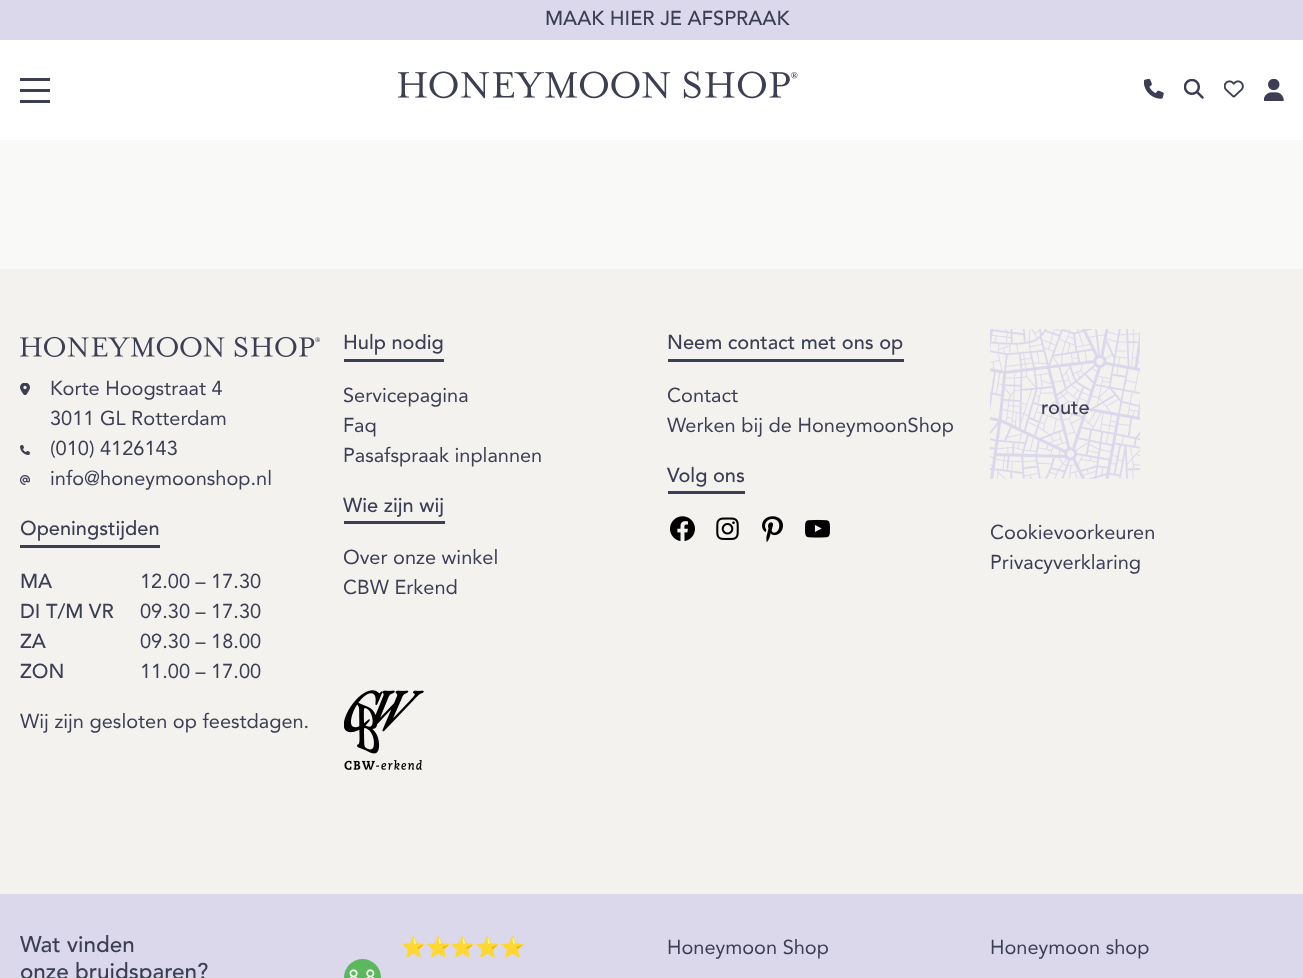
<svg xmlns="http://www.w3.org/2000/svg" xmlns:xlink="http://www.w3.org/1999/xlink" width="1303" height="978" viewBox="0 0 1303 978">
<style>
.cls-1{font:500 20px Avenir;fill:#3c3e53}
.cls-2{font:20px Avenir;fill:#3c3e53}
.cls-3{font:500 22.5px Avenir;fill:#3c3e53}
.cls-4{font:bold 20px Noto Color Emoji;fill:#3c3e53}
.cls-5{font:20px Avenir;fill:#ffffff}
</style>
<rect width="100%" height="100%" fill="#f9f9f7"/>
<rect fill="#ffffff" x="0" y="40" width="1303" height="100"/>
<rect fill="#dbd8ec" x="0" y="0" width="1303" height="40"/>
<rect fill="#3c3e53" x="20" y="78" width="30" height="3"/>
<rect fill="#3c3e53" x="20" y="89" width="30" height="3"/>
<rect fill="#3c3e53" x="20" y="100" width="30" height="3"/>
<image xlink:href="image0.png" x="398" y="71" width="400" height="28"/>
<image xlink:href="image1.png" x="1144" y="79" width="20" height="20"/>
<image xlink:href="image2.png" x="1184" y="79" width="20" height="20"/>
<image xlink:href="image3.png" x="1224" y="80" width="20" height="18"/>
<image xlink:href="image4.png" x="1264" y="79" width="20" height="22"/>
<rect fill="#f3f2ef" x="0" y="269" width="1303" height="625"/>
<image xlink:href="image5.png" x="20" y="336" width="300" height="21"/>
<image xlink:href="image6.png" x="20" y="383" width="10" height="12"/>
<image xlink:href="image7.png" x="20" y="445" width="10" height="10"/>
<image xlink:href="image8.png" x="20" y="475" width="10" height="10"/>
<rect fill="#3c3e53" x="20" y="545" width="140" height="3"/>
<rect fill="#3c3e53" x="344" y="359" width="100" height="3"/>
<rect fill="#3c3e53" x="344" y="521" width="101" height="3"/>
<image xlink:href="image9.png" x="344" y="690" width="80" height="80"/>
<rect fill="#3c3e53" x="668" y="359" width="236" height="3"/>
<rect fill="#3c3e53" x="668" y="491" width="77" height="3"/>
<image xlink:href="image10.png" x="670" y="516" width="25" height="26"/>
<image xlink:href="image11.png" x="716" y="517" width="23" height="23"/>
<image xlink:href="image12.png" x="762" y="516" width="21" height="27"/>
<image xlink:href="image13.png" x="805" y="519" width="25" height="19"/>
<image xlink:href="image14.png" x="990" y="329" width="150" height="150"/>
<rect fill="#dbd8ec" x="0" y="894" width="1303" height="84"/>
<rect fill="#5cb85c" x="344" y="959" width="37" height="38" rx="18.5"/>
<text class="cls-1" x="545" y="25">MAAK HIER JE AFSPRAAK</text>
<text class="cls-2"><tspan x="50" y="395">Korte Hoogstraat 4</tspan><tspan x="50" y="425">3011 GL Rotterdam</tspan><tspan x="50" y="455">(010) 4126143</tspan><tspan x="50" y="485">info@honeymoonshop.nl</tspan></text>
<text class="cls-1" x="20" y="535">Openingstijden</text>
<text class="cls-1" x="20" y="588">MA</text>
<text class="cls-2" x="140" y="588">12.00 – 17.30</text>
<text class="cls-1" x="20" y="618">DI T/M VR</text>
<text class="cls-2" x="140" y="618">09.30 – 17.30</text>
<text class="cls-1" x="20" y="648">ZA</text>
<text class="cls-2" x="140" y="648">09.30 – 18.00</text>
<text class="cls-1" x="20" y="678">ZON</text>
<text class="cls-2" x="140" y="678">11.00 – 17.00</text>
<text class="cls-2" x="20" y="728">Wij zijn gesloten op feestdagen.</text>
<text class="cls-1" x="343" y="349">Hulp nodig</text>
<text class="cls-2"><tspan x="343" y="402">Servicepagina</tspan><tspan x="343" y="432">Faq</tspan><tspan x="343" y="462">Pasafspraak inplannen</tspan></text>
<text class="cls-1" x="343" y="512">Wie zijn wij</text>
<text class="cls-2"><tspan x="343" y="564">Over onze winkel</tspan><tspan x="343" y="594">CBW Erkend</tspan></text>
<text class="cls-1" x="667" y="349">Neem contact met ons op</text>
<text class="cls-2"><tspan x="667" y="402">Contact</tspan><tspan x="667" y="432">Werken bij de HoneymoonShop</tspan></text>
<text class="cls-1" x="667" y="482">Volg ons</text>
<text class="cls-1" x="1041" y="414">route</text>
<text class="cls-2"><tspan x="990" y="539">Cookievoorkeuren</tspan><tspan x="990" y="569">Privacyverklaring</tspan></text>
<text class="cls-3"><tspan x="20" y="952">Wat vinden</tspan><tspan x="20" y="979">onze bruidsparen?</tspan></text>
<text class="cls-4" x="401" y="954">⭐⭐⭐⭐⭐</text>
<text class="cls-5" x="348" y="984">8.8</text>
<text class="cls-2" x="667" y="954">Honeymoon Shop</text>
<text class="cls-2" x="990" y="954">Honeymoon shop</text>
</svg>
